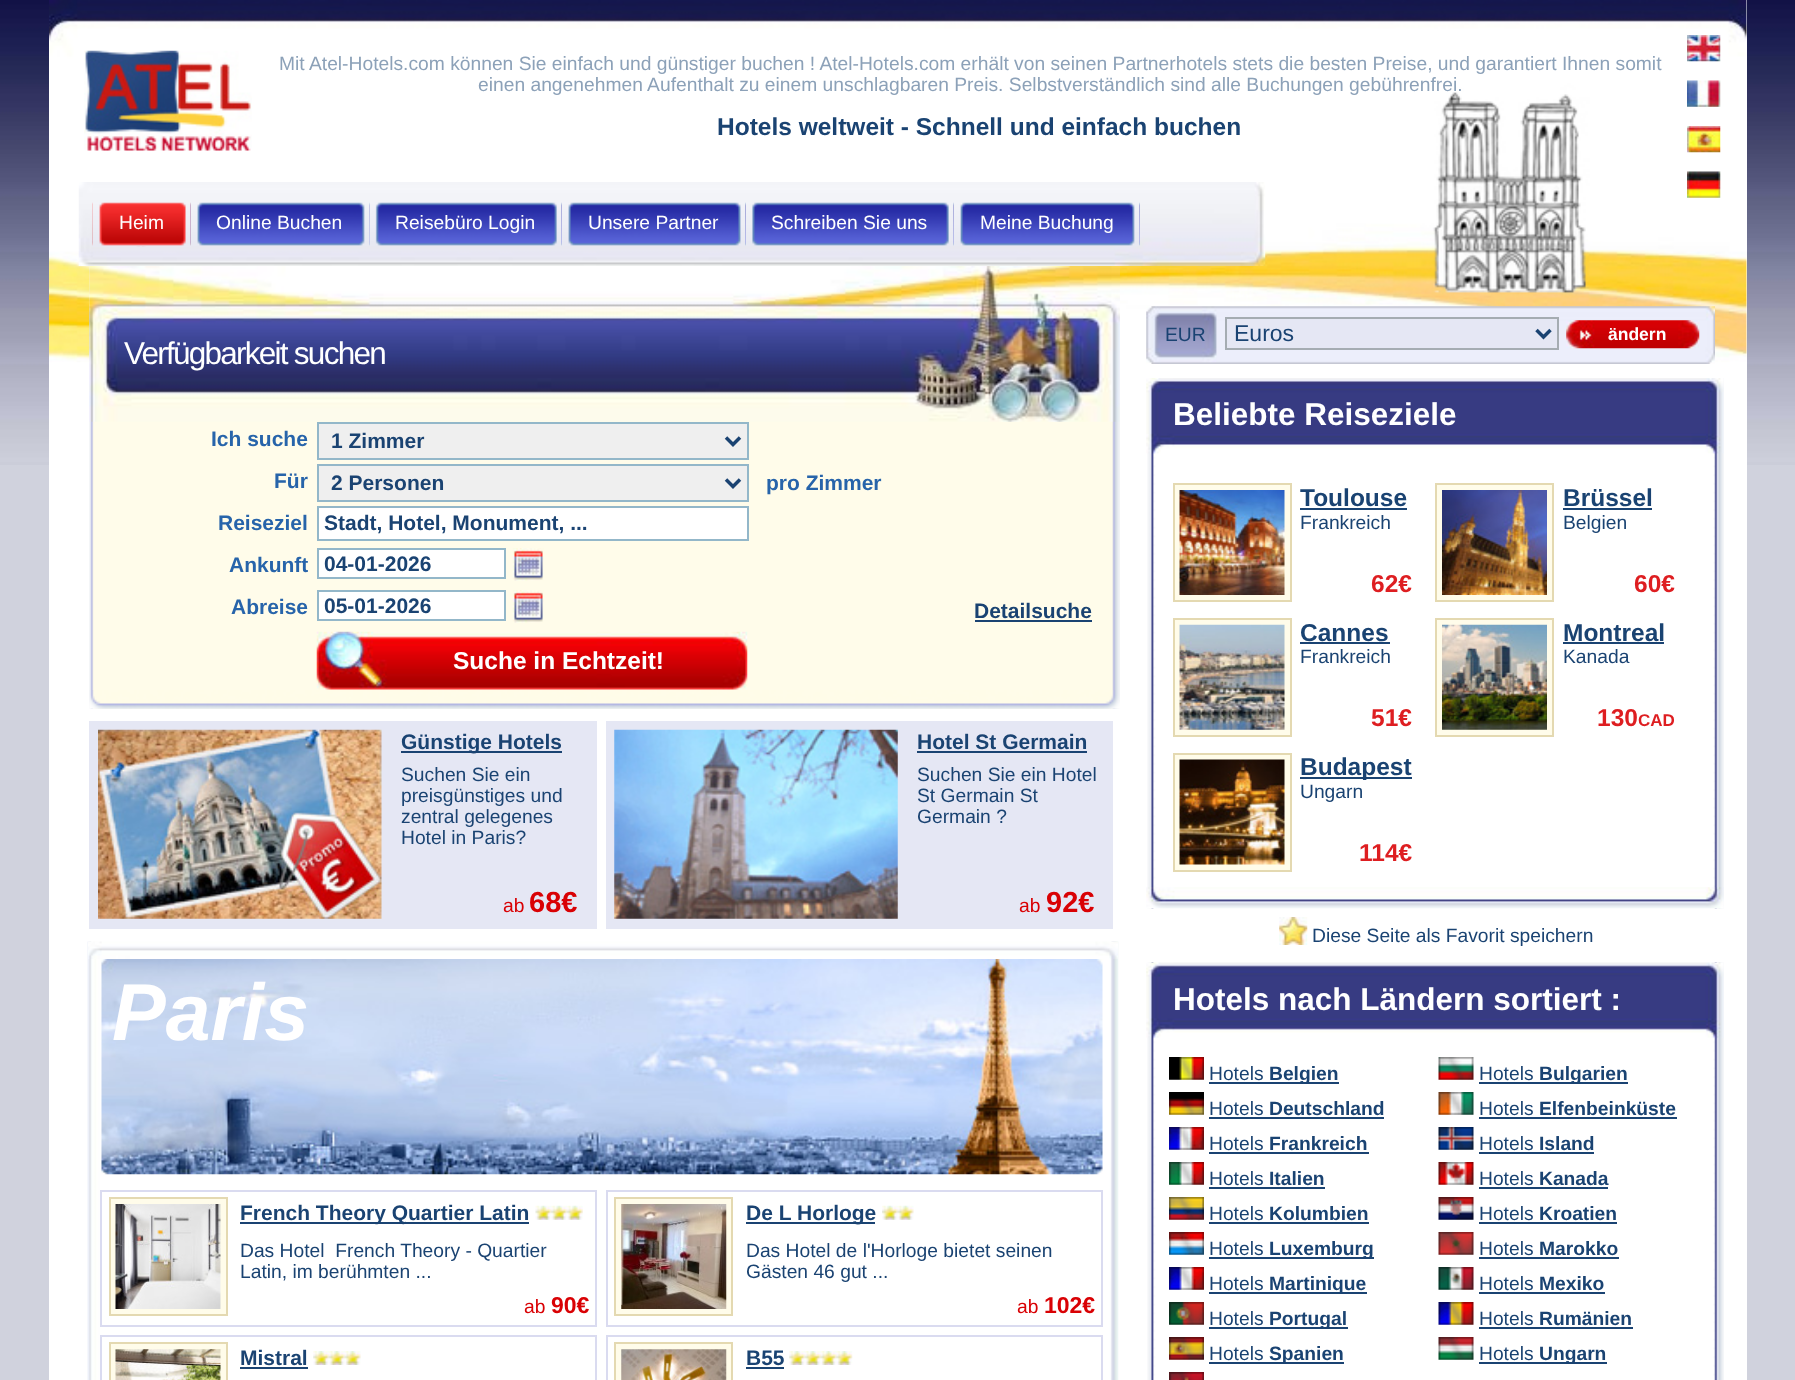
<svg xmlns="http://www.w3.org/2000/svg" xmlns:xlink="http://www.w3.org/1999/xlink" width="1795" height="1380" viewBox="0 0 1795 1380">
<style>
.cls-1{font:19.25px Liberation Sans;fill:#8ca1b8}
.cls-2{font:bold 24.5px Liberation Sans;fill:#1a4372}
.cls-3{font:19.25px Liberation Sans;fill:#ffffff}
.cls-4{font:31.5px Liberation Sans;letter-spacing:-1.75px;fill:#ffffff}
.cls-5{font:bold 21px Liberation Sans;fill:#2764aa}
.cls-6{font:bold 21px Liberation Sans;fill:#1a4372}
.cls-7{font:bold 24.5px Liberation Sans;fill:#ffffff}
.cls-8{font:19.25px Liberation Sans;fill:#1a4372}
.cls-9{font:19.25px Liberation Sans;fill:#d90104}
.cls-10{font:bold 29px Liberation Sans;fill:#d90104}
.cls-11{font:italic bold 80.5px Liberation Sans;fill:#ffffff}
.cls-12{font:bold 23px Liberation Sans;fill:#d90104}
.cls-13{font:23px Liberation Sans;fill:#1a4372}
.cls-14{font:bold 17.5px Liberation Sans;fill:#ffffff}
.cls-15{font:bold 31.5px Liberation Sans;fill:#ffffff}
.cls-16{font:bold 24.5px Liberation Sans;fill:#de1e21}
.cls-17{font:bold 17px Liberation Sans;fill:#de1e21}
.cls-18{font:bold 19.25px Liberation Sans;fill:#1a4372}
</style>
<rect width="100%" height="100%" fill="#d0d2dd"/>
<image xlink:href="image0.png" x="0" y="0" width="1795" height="465"/>
<rect fill="#ffffff" x="49" y="0" width="1698" height="1380"/>
<image xlink:href="image1.png" x="49" y="0" width="1698" height="363"/>
<image xlink:href="image2.png" x="84" y="50" width="168" height="101"/>
<image xlink:href="image3.png" x="78" y="182" width="1188" height="84"/>
<image xlink:href="image4.png" x="92" y="202" width="99" height="45"/>
<image xlink:href="image5.png" x="92" y="202" width="99" height="45"/>
<image xlink:href="image6.png" x="136" y="202" width="55" height="45"/>
<image xlink:href="image7.png" x="190" y="202" width="180" height="44"/>
<image xlink:href="image8.png" x="190" y="202" width="180" height="44"/>
<image xlink:href="image9.png" x="359" y="202" width="11" height="44"/>
<image xlink:href="image10.png" x="369" y="202" width="193" height="44"/>
<image xlink:href="image11.png" x="369" y="202" width="193" height="44"/>
<image xlink:href="image12.png" x="551" y="202" width="11" height="44"/>
<image xlink:href="image13.png" x="561" y="202" width="185" height="44"/>
<image xlink:href="image14.png" x="561" y="202" width="185" height="44"/>
<image xlink:href="image15.png" x="735" y="202" width="11" height="44"/>
<image xlink:href="image16.png" x="745" y="202" width="209" height="44"/>
<image xlink:href="image17.png" x="745" y="202" width="209" height="44"/>
<image xlink:href="image18.png" x="943" y="202" width="11" height="44"/>
<image xlink:href="image19.png" x="953" y="202" width="187" height="44"/>
<image xlink:href="image20.png" x="953" y="202" width="187" height="44"/>
<image xlink:href="image21.png" x="1129" y="202" width="11" height="44"/>
<image xlink:href="image22.png" x="1687" y="35" width="34" height="27"/>
<image xlink:href="image23.png" x="1687" y="80" width="34" height="27"/>
<image xlink:href="image24.png" x="1687" y="126" width="34" height="27"/>
<image xlink:href="image25.png" x="1687" y="171" width="34" height="27"/>
<image xlink:href="image26.png" x="89" y="266" width="1031" height="443"/>
<image xlink:href="image27.png" x="89" y="266" width="1031" height="156"/>
<rect fill="#efefef" stroke="#93b7c9" stroke-width="2" x="318" y="423" width="430" height="36"/>
<path fill="none" stroke="#1a4372" stroke-width="3.5" d="M726 437.5L733 444.5L740 437.5"/>
<rect fill="#efefef" stroke="#93b7c9" stroke-width="2" x="318" y="465" width="430" height="36"/>
<path fill="none" stroke="#1a4372" stroke-width="3.5" d="M726 479.5L733 486.5L740 479.5"/>
<rect fill="#ffffff" stroke="#93b7c9" stroke-width="2" x="318" y="507" width="430" height="33"/>
<rect fill="#ffffff" stroke="#93b7c9" stroke-width="2" x="318" y="549" width="187" height="29"/>
<image xlink:href="image28.png" x="512" y="548" width="32" height="33"/>
<rect fill="#ffffff" stroke="#93b7c9" stroke-width="2" x="318" y="591" width="187" height="29"/>
<image xlink:href="image28.png" x="512" y="590" width="32" height="33"/>
<rect fill="#1a4372" x="975" y="620" width="117" height="2"/>
<image xlink:href="image29.png" x="316" y="631" width="432" height="59"/>
<image xlink:href="image30.png" x="89" y="690" width="1031" height="19"/>
<rect fill="#e5e7f4" x="89" y="721" width="508" height="208"/>
<image xlink:href="image31.png" x="98" y="729" width="284" height="190"/>
<rect fill="#1a4372" x="401" y="751" width="161" height="2"/>
<rect fill="#e5e7f4" x="606" y="721" width="507" height="208"/>
<image xlink:href="image32.png" x="614" y="729" width="284" height="190"/>
<rect fill="#1a4372" x="917" y="751" width="170" height="2"/>
<image xlink:href="image33.png" x="87" y="941" width="1032" height="439"/>
<image xlink:href="image34.png" x="88" y="941" width="1030" height="18"/>
<image xlink:href="image35.png" x="101" y="959" width="1002" height="216"/>
<rect fill="none" stroke="#dadbf0" stroke-width="2" x="101" y="1191" width="495" height="135"/>
<rect fill="#fffcea" stroke="#e4d9b1" stroke-width="2" x="110" y="1198" width="117" height="117"/>
<image xlink:href="image36.png" x="115" y="1204" width="106" height="105"/>
<rect fill="#1a4372" x="240" y="1222" width="289" height="2"/>
<image xlink:href="image37.png" x="535" y="1205" width="48" height="15"/>
<rect fill="none" stroke="#dadbf0" stroke-width="2" x="607" y="1191" width="495" height="135"/>
<rect fill="#fffcea" stroke="#e4d9b1" stroke-width="2" x="615" y="1198" width="117" height="117"/>
<image xlink:href="image38.png" x="621" y="1204" width="106" height="105"/>
<rect fill="#1a4372" x="746" y="1222" width="129" height="2"/>
<image xlink:href="image39.png" x="882" y="1205" width="32" height="15"/>
<rect fill="none" stroke="#dadbf0" stroke-width="2" x="101" y="1336" width="495" height="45"/>
<rect fill="#fffcea" stroke="#e4d9b1" stroke-width="2" x="110" y="1343" width="117" height="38"/>
<image xlink:href="image40.png" x="115" y="1349" width="106" height="31"/>
<rect fill="#1a4372" x="240" y="1367" width="68" height="2"/>
<image xlink:href="image41.png" x="313" y="1351" width="48" height="14"/>
<rect fill="none" stroke="#dadbf0" stroke-width="2" x="607" y="1336" width="495" height="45"/>
<rect fill="#fffcea" stroke="#e4d9b1" stroke-width="2" x="615" y="1343" width="117" height="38"/>
<image xlink:href="image42.png" x="621" y="1349" width="106" height="31"/>
<rect fill="#1a4372" x="746" y="1367" width="38" height="2"/>
<image xlink:href="image43.png" x="789" y="1351" width="64" height="14"/>
<image xlink:href="image44.png" x="1146" y="306" width="569" height="58"/>
<rect fill="#e5e7f4" stroke="#a5acb2" stroke-width="2" x="1226" y="318" width="332" height="31"/>
<path fill="none" stroke="#1a4372" stroke-width="3.5" d="M1536.5 330L1543.5 337L1550.5 330"/>
<image xlink:href="image45.png" x="1566" y="320" width="134" height="29"/>
<image xlink:href="image46.png" x="1147" y="378" width="577" height="531"/>
<image xlink:href="image47.png" x="1146" y="378" width="578" height="76"/>
<rect fill="#fffcea" stroke="#e4d9b1" stroke-width="2" x="1174" y="484" width="117" height="117"/>
<image xlink:href="image48.png" x="1179" y="490" width="106" height="105"/>
<rect fill="#1a4372" x="1300" y="508" width="107" height="2"/>
<rect fill="#fffcea" stroke="#e4d9b1" stroke-width="2" x="1436" y="484" width="117" height="117"/>
<image xlink:href="image49.png" x="1442" y="490" width="105" height="105"/>
<rect fill="#1a4372" x="1563" y="508" width="89" height="2"/>
<rect fill="#fffcea" stroke="#e4d9b1" stroke-width="2" x="1174" y="619" width="117" height="117"/>
<image xlink:href="image50.png" x="1179" y="624" width="106" height="106"/>
<rect fill="#1a4372" x="1300" y="642" width="90" height="2"/>
<rect fill="#fffcea" stroke="#e4d9b1" stroke-width="2" x="1436" y="619" width="117" height="117"/>
<image xlink:href="image51.png" x="1442" y="624" width="105" height="106"/>
<rect fill="#1a4372" x="1563" y="642" width="101" height="2"/>
<rect fill="#fffcea" stroke="#e4d9b1" stroke-width="2" x="1174" y="754" width="117" height="117"/>
<image xlink:href="image52.png" x="1179" y="759" width="106" height="106"/>
<rect fill="#1a4372" x="1300" y="777" width="112" height="2"/>
<image xlink:href="image53.png" x="1146" y="887" width="578" height="22"/>
<image xlink:href="image54.png" x="1279" y="917" width="29" height="28"/>
<image xlink:href="image55.png" x="1147" y="962" width="577" height="418"/>
<image xlink:href="image56.png" x="1146" y="962" width="578" height="77"/>
<image xlink:href="image57.png" x="1169" y="1057" width="35" height="23"/>
<rect fill="#1a4372" x="1209" y="1082" width="130" height="2"/>
<image xlink:href="image58.png" x="1438" y="1057" width="36" height="23"/>
<rect fill="#1a4372" x="1479" y="1082" width="149" height="2"/>
<image xlink:href="image59.png" x="1169" y="1092" width="35" height="23"/>
<rect fill="#1a4372" x="1209" y="1117" width="175" height="2"/>
<image xlink:href="image60.png" x="1438" y="1092" width="36" height="23"/>
<rect fill="#1a4372" x="1479" y="1117" width="198" height="2"/>
<image xlink:href="image61.png" x="1169" y="1127" width="35" height="23"/>
<rect fill="#1a4372" x="1209" y="1152" width="160" height="2"/>
<image xlink:href="image62.png" x="1438" y="1127" width="36" height="23"/>
<rect fill="#1a4372" x="1479" y="1152" width="115" height="2"/>
<image xlink:href="image63.png" x="1169" y="1162" width="35" height="23"/>
<rect fill="#1a4372" x="1209" y="1187" width="116" height="2"/>
<image xlink:href="image64.png" x="1438" y="1162" width="36" height="23"/>
<rect fill="#1a4372" x="1479" y="1187" width="129" height="2"/>
<image xlink:href="image65.png" x="1169" y="1197" width="35" height="23"/>
<rect fill="#1a4372" x="1209" y="1222" width="160" height="2"/>
<image xlink:href="image66.png" x="1438" y="1197" width="36" height="23"/>
<rect fill="#1a4372" x="1479" y="1222" width="138" height="2"/>
<image xlink:href="image67.png" x="1169" y="1232" width="35" height="23"/>
<rect fill="#1a4372" x="1209" y="1257" width="165" height="2"/>
<image xlink:href="image68.png" x="1438" y="1232" width="36" height="23"/>
<rect fill="#1a4372" x="1479" y="1257" width="140" height="2"/>
<image xlink:href="image69.png" x="1169" y="1267" width="35" height="23"/>
<rect fill="#1a4372" x="1209" y="1292" width="158" height="2"/>
<image xlink:href="image70.png" x="1438" y="1267" width="36" height="23"/>
<rect fill="#1a4372" x="1479" y="1292" width="126" height="2"/>
<image xlink:href="image71.png" x="1169" y="1302" width="35" height="23"/>
<rect fill="#1a4372" x="1209" y="1327" width="139" height="2"/>
<image xlink:href="image72.png" x="1438" y="1302" width="36" height="23"/>
<rect fill="#1a4372" x="1479" y="1327" width="154" height="2"/>
<image xlink:href="image73.png" x="1169" y="1337" width="35" height="23"/>
<rect fill="#1a4372" x="1209" y="1362" width="135" height="2"/>
<image xlink:href="image74.png" x="1438" y="1337" width="36" height="23"/>
<rect fill="#1a4372" x="1479" y="1362" width="128" height="2"/>
<image xlink:href="image75.png" x="1169" y="1372" width="35" height="8"/>
<text class="cls-1" x="279" y="70">Mit Atel-Hotels.com können Sie einfach und günstiger buchen ! Atel-Hotels.com erhält von seinen Partnerhotels stets die besten Preise, und garantiert Ihnen somit</text>
<text class="cls-1" x="478" y="91">einen angenehmen Aufenthalt zu einem unschlagbaren Preis. Selbstverständlich sind alle Buchungen gebührenfrei.</text>
<text class="cls-2" x="717" y="135">Hotels weltweit - Schnell und einfach buchen</text>
<text class="cls-3" x="119" y="229">Heim</text>
<text class="cls-3" x="216" y="229">Online Buchen</text>
<text class="cls-3" x="395" y="229">Reisebüro Login</text>
<text class="cls-3" x="588" y="229">Unsere Partner</text>
<text class="cls-3" x="771" y="229">Schreiben Sie uns</text>
<text class="cls-3" x="980" y="229">Meine Buchung</text>
<text class="cls-4" x="124" y="364">Verfügbarkeit suchen</text>
<text class="cls-5" x="211" y="446">Ich suche</text>
<text class="cls-6" x="331" y="448">1 Zimmer</text>
<text class="cls-5" x="274" y="488">Für</text>
<text class="cls-6" x="331" y="490">2 Personen</text>
<text class="cls-5" x="766" y="490">pro Zimmer</text>
<text class="cls-5" x="218" y="530">Reiseziel</text>
<text class="cls-6" x="324" y="530">Stadt, Hotel, Monument, ...</text>
<text class="cls-5" x="229" y="572">Ankunft</text>
<text class="cls-6" x="324" y="571">04-01-2026</text>
<text class="cls-5" x="231" y="614">Abreise</text>
<text class="cls-6" x="324" y="613">05-01-2026</text>
<text class="cls-6" x="974" y="618">Detailsuche</text>
<text class="cls-7" x="453" y="669">Suche in Echtzeit!</text>
<text class="cls-6" x="401" y="749">Günstige Hotels</text>
<text class="cls-8"><tspan x="401" y="781">Suchen Sie ein</tspan><tspan x="401" y="802">preisgünstiges und</tspan><tspan x="401" y="823">zentral gelegenes</tspan><tspan x="401" y="844">Hotel in Paris?</tspan></text>
<text class="cls-9" x="503" y="912">ab</text>
<text class="cls-10" x="529" y="912">68€</text>
<text class="cls-6" x="917" y="749">Hotel St Germain</text>
<text class="cls-8"><tspan x="917" y="781">Suchen Sie ein Hotel</tspan><tspan x="917" y="802">St Germain St</tspan><tspan x="917" y="823">Germain ?</tspan></text>
<text class="cls-9" x="1019" y="912">ab</text>
<text class="cls-10" x="1046" y="912">92€</text>
<text class="cls-11" x="112" y="1040">Paris</text>
<text class="cls-6" x="240" y="1220">French Theory Quartier Latin</text>
<text class="cls-8" xml:space="preserve"><tspan x="240" y="1257">Das Hotel  French Theory - Quartier</tspan><tspan x="240" y="1278">Latin, im berühmten ...</tspan></text>
<text class="cls-9" x="524" y="1313">ab</text>
<text class="cls-12" x="551" y="1313">90€</text>
<text class="cls-6" x="746" y="1220">De L Horloge</text>
<text class="cls-8"><tspan x="746" y="1257">Das Hotel de l'Horloge bietet seinen</tspan><tspan x="746" y="1278">Gästen 46 gut ...</tspan></text>
<text class="cls-9" x="1017" y="1313">ab</text>
<text class="cls-12" x="1044" y="1313">102€</text>
<text class="cls-6" x="240" y="1365">Mistral</text>
<text class="cls-6" x="746" y="1365">B55</text>
<text class="cls-8" x="1165" y="341">EUR</text>
<text class="cls-13" x="1234" y="341">Euros</text>
<text class="cls-14" x="1608" y="340">ändern</text>
<text class="cls-15" x="1173" y="425">Beliebte Reiseziele</text>
<text class="cls-2" x="1300" y="506">Toulouse</text>
<text class="cls-8" x="1300" y="529">Frankreich</text>
<text class="cls-16" x="1371" y="592">62€</text>
<text class="cls-2" x="1563" y="506">Brüssel</text>
<text class="cls-8" x="1563" y="529">Belgien</text>
<text class="cls-16" x="1634" y="592">60€</text>
<text class="cls-2" x="1300" y="641">Cannes</text>
<text class="cls-8" x="1300" y="663">Frankreich</text>
<text class="cls-16" x="1371" y="726">51€</text>
<text class="cls-2" x="1563" y="641">Montreal</text>
<text class="cls-8" x="1563" y="663">Kanada</text>
<text class="cls-16" x="1597" y="726">130</text>
<text class="cls-17" x="1638" y="726">CAD</text>
<text class="cls-2" x="1300" y="775">Budapest</text>
<text class="cls-8" x="1300" y="798">Ungarn</text>
<text class="cls-16" x="1359" y="861">114€</text>
<text class="cls-8" x="1312" y="942">Diese Seite als Favorit speichern</text>
<text class="cls-15" x="1173" y="1010">Hotels nach Ländern sortiert :</text>
<text class="cls-8" x="1209" y="1080">Hotels</text>
<text class="cls-18" x="1269" y="1080">Belgien</text>
<text class="cls-8" x="1479" y="1080">Hotels</text>
<text class="cls-18" x="1539" y="1080">Bulgarien</text>
<text class="cls-8" x="1209" y="1115">Hotels</text>
<text class="cls-18" x="1269" y="1115">Deutschland</text>
<text class="cls-8" x="1479" y="1115">Hotels</text>
<text class="cls-18" x="1539" y="1115">Elfenbeinküste</text>
<text class="cls-8" x="1209" y="1150">Hotels</text>
<text class="cls-18" x="1269" y="1150">Frankreich</text>
<text class="cls-8" x="1479" y="1150">Hotels</text>
<text class="cls-18" x="1539" y="1150">Island</text>
<text class="cls-8" x="1209" y="1185">Hotels</text>
<text class="cls-18" x="1269" y="1185">Italien</text>
<text class="cls-8" x="1479" y="1185">Hotels</text>
<text class="cls-18" x="1539" y="1185">Kanada</text>
<text class="cls-8" x="1209" y="1220">Hotels</text>
<text class="cls-18" x="1269" y="1220">Kolumbien</text>
<text class="cls-8" x="1479" y="1220">Hotels</text>
<text class="cls-18" x="1539" y="1220">Kroatien</text>
<text class="cls-8" x="1209" y="1255">Hotels</text>
<text class="cls-18" x="1269" y="1255">Luxemburg</text>
<text class="cls-8" x="1479" y="1255">Hotels</text>
<text class="cls-18" x="1539" y="1255">Marokko</text>
<text class="cls-8" x="1209" y="1290">Hotels</text>
<text class="cls-18" x="1269" y="1290">Martinique</text>
<text class="cls-8" x="1479" y="1290">Hotels</text>
<text class="cls-18" x="1539" y="1290">Mexiko</text>
<text class="cls-8" x="1209" y="1325">Hotels</text>
<text class="cls-18" x="1269" y="1325">Portugal</text>
<text class="cls-8" x="1479" y="1325">Hotels</text>
<text class="cls-18" x="1539" y="1325">Rumänien</text>
<text class="cls-8" x="1209" y="1360">Hotels</text>
<text class="cls-18" x="1269" y="1360">Spanien</text>
<text class="cls-8" x="1479" y="1360">Hotels</text>
<text class="cls-18" x="1539" y="1360">Ungarn</text>
</svg>
